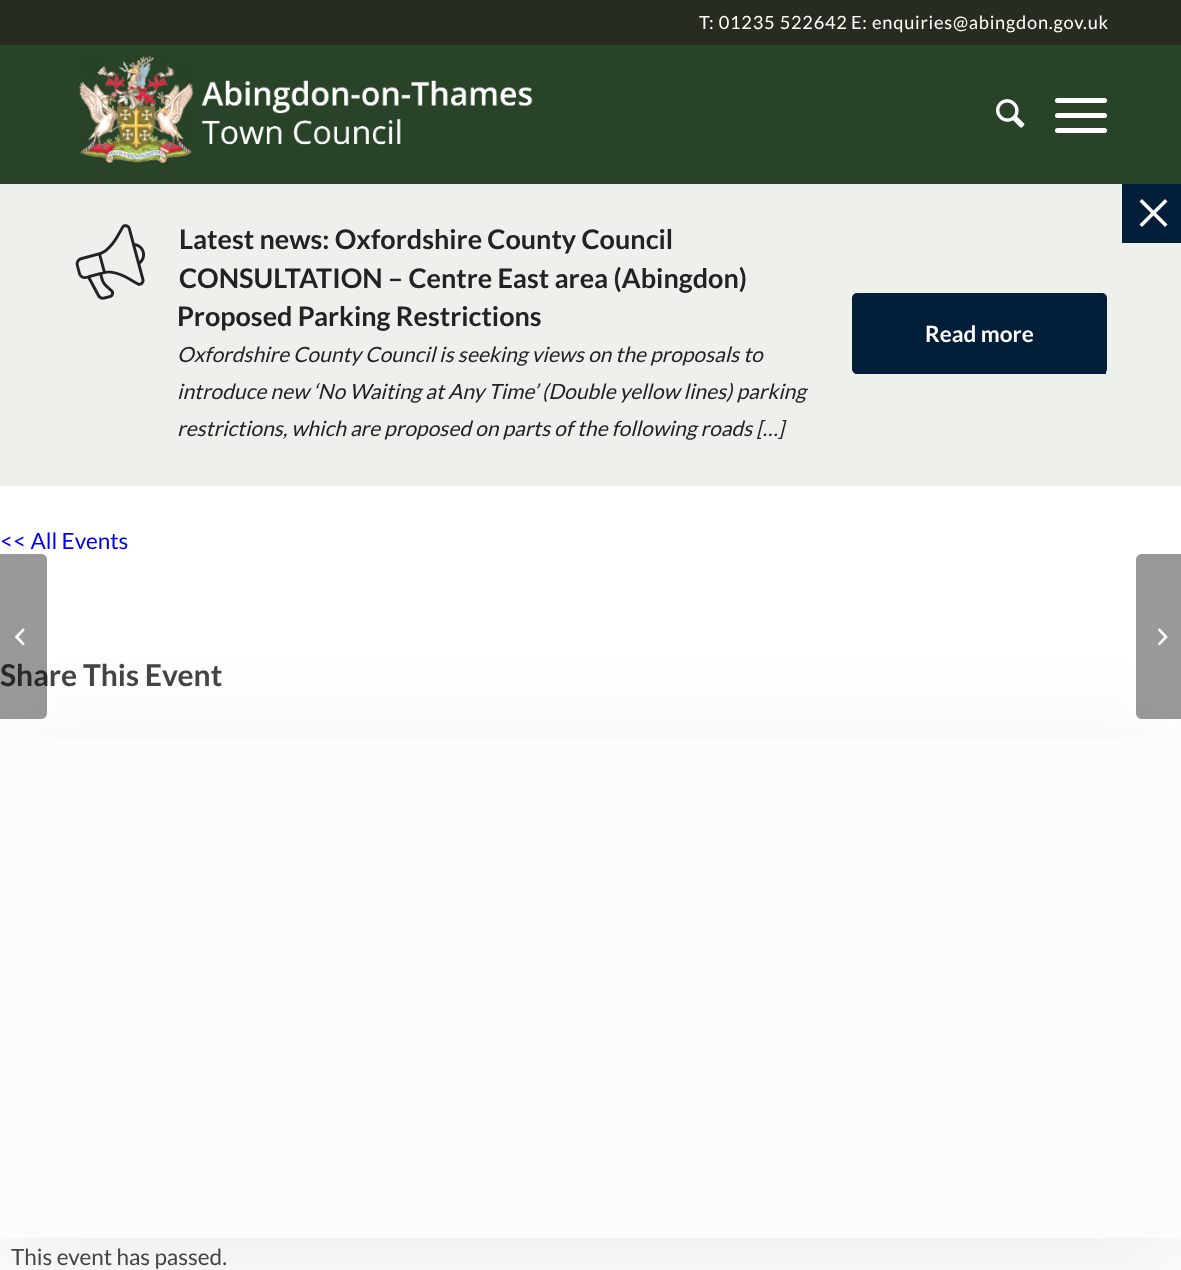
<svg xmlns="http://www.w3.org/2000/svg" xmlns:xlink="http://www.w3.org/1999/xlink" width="1181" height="1270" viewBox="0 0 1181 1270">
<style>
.cls-1{font:18.25px Lato;letter-spacing:0.75px;fill:#ffffff}
.cls-2{font:bold 27px Lato;fill:#222222}
.cls-3{font:italic 21px Lato;fill:#222222}
.cls-4{font:bold 22.5px Lato;fill:#ffffff}
.cls-5{font:22.5px Lato;fill:#0000ee}
.cls-6{font:bold 30px Lato;fill:#444444}
.cls-7{font:22.5px Lato;fill:#444444}
</style>
<rect width="100%" height="100%" fill="#ffffff"/>
<rect fill="#262d20" x="0" y="0" width="1181" height="45"/>
<rect fill="#284328" x="0" y="45" width="1181" height="139"/>
<image xlink:href="image0.png" x="79" y="56" width="454" height="108"/>
<image xlink:href="image1.png" x="996" y="99" width="29" height="29"/>
<rect fill="#ffffff" x="1055" y="113" width="52" height="5" rx="2.5"/>
<rect fill="#ffffff" x="1055" y="98" width="52" height="5" rx="2.5"/>
<rect fill="#ffffff" x="1055" y="128" width="52" height="5" rx="2.5"/>
<rect fill="#eef0ec" x="0" y="184" width="1181" height="302"/>
<rect fill="#021e39" x="1122" y="184" width="59" height="59"/>
<path fill="#ffffff" d="M1165 199L1167.5 201.5L1142 227L1139.5 224.5Z"/>
<path fill="#ffffff" d="M1167.5 224.5L1165 227L1139.5 201.5L1142 199Z"/>
<image xlink:href="image2.png" x="75" y="224" width="70" height="76"/>
<rect fill="#021e39" x="852" y="293" width="255" height="81" rx="5"/>
<rect fill="#021e39" x="855" y="372" width="251" height="2"/>
<rect fill="#fcfcfc" x="0" y="1238" width="1181" height="32"/>
<rect fill="#161c2d" fill-opacity="0.05" filter="blur(48px)" x="0" y="740" width="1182" height="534"/>
<rect fill="#fcfcfc" x="0" y="738" width="1181" height="500"/>
<path fill="#000000" fill-opacity="0.4" d="M1142 554H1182V719H1142C1138.5 719 1136 716.5 1136 713V560C1136 556.5 1138.5 554 1142 554Z"/>
<image xlink:href="image4.png" x="1158" y="628" width="10" height="18"/>
<text class="cls-1" x="699" y="29">T: 01235 522642</text>
<text class="cls-1" x="851" y="29">E: enquiries@abingdon.gov.uk</text>
<text class="cls-2"><tspan x="179" y="249">Latest news: Oxfordshire County Council</tspan><tspan x="179" y="288">CONSULTATION – Centre East area (Abingdon)</tspan></text>
<text class="cls-2" x="177" y="326">Proposed Parking Restrictions</text>
<text class="cls-3"><tspan x="177" y="362">Oxfordshire County Council is seeking views on the proposals to</tspan><tspan x="177" y="399">introduce new ‘No Waiting at Any Time’ (Double yellow lines) parking</tspan><tspan x="177" y="436">restrictions, which are proposed on parts of the following roads […]</tspan></text>
<text class="cls-4" x="925" y="342">Read more</text>
<text class="cls-5" x="0" y="549">&lt;&lt; All Events</text>
<text class="cls-6" x="0" y="686">Share This Event</text>
<text class="cls-7" x="11" y="1265">This event has passed.</text>
<path fill="#000000" fill-opacity="0.4" d="M0 554H41C44.5 554 47 556.5 47 560V713C47 716.5 44.5 719 41 719H0Z"/>
<image xlink:href="image3.png" x="15" y="628" width="10" height="18"/>
</svg>
